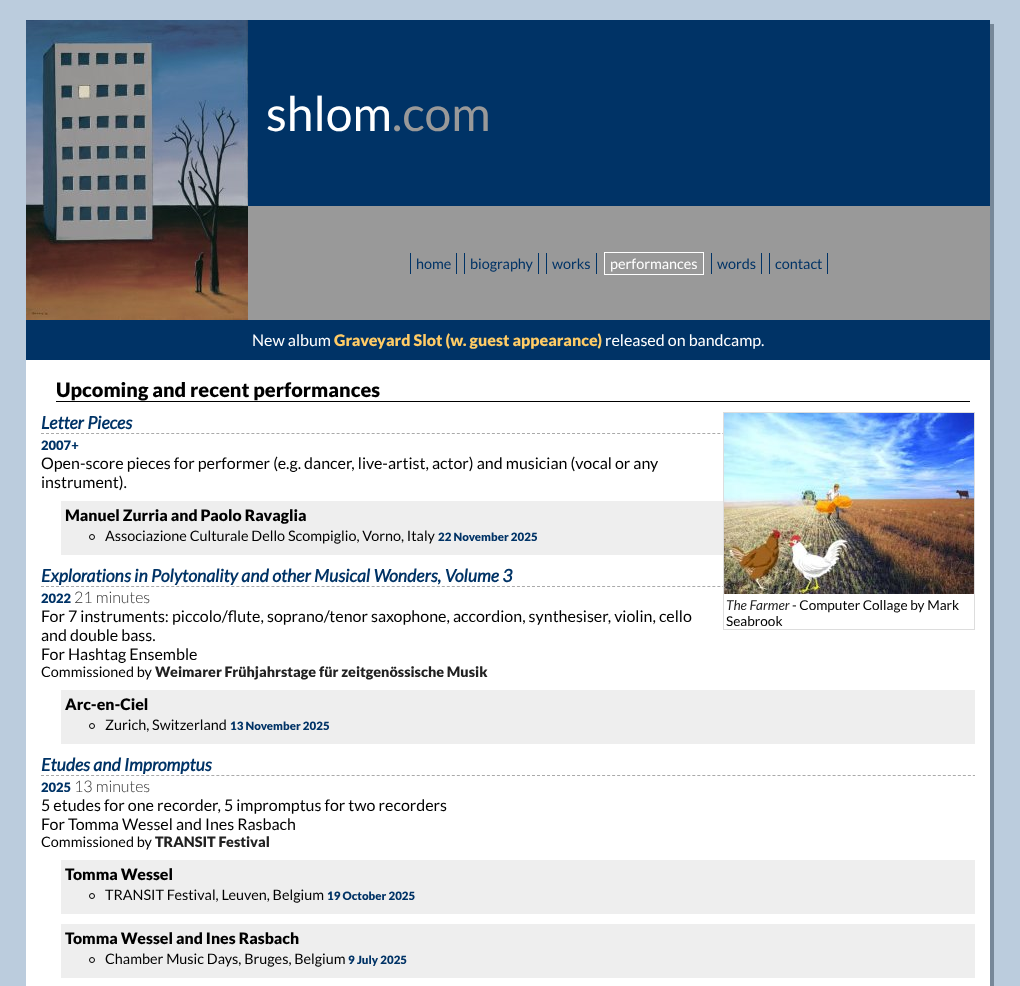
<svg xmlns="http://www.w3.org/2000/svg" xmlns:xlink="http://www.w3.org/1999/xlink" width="1020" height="986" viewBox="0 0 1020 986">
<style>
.cls-1{font:48px Lato;fill:#ffffff}
.cls-2{font:48px Lato;fill:#999999}
.cls-3{font:14.4px Lato;fill:#003366}
.cls-4{font:14.4px Lato;fill:#ffffff}
.cls-5{font:16px Lato;fill:#ffffff}
.cls-6{font:900 16px Lato;fill:#ffcc66}
.cls-7{font:900 20px Lato;fill:#000000}
.cls-8{font:italic bold 17.6px Lato;fill:#003366}
.cls-9{font:900 13px Lato;fill:#003366}
.cls-10{font:16px Lato;fill:#000000}
.cls-11{font:900 15.8px Lato;fill:#000000}
.cls-12{font:14.4px Lato;fill:#000000}
.cls-13{font:900 11.5px Lato;fill:#003366}
.cls-14{font:300 16px Lato;fill:#333333}
.cls-15{font:900 14.4px Lato;fill:#222222}
.cls-16{font:italic 13.6px Lato;fill:#222222}
.cls-17{font:13.6px Lato;fill:#000000}
</style>
<rect width="100%" height="100%" fill="#bbccdd"/>
<rect fill="#778899" x="990" y="24" width="4" height="962"/>
<image xlink:href="image0.png" x="26" y="20" width="222" height="300"/>
<rect fill="#003366" x="248" y="20" width="742" height="186"/>
<rect fill="#999999" x="248" y="206" width="742" height="114"/>
<rect fill="#003366" x="456" y="253" width="1" height="21"/>
<rect fill="#003366" x="410" y="253" width="1" height="21"/>
<rect fill="#003366" x="538" y="253" width="1" height="21"/>
<rect fill="#003366" x="464" y="253" width="1" height="21"/>
<rect fill="#003366" x="596" y="253" width="1" height="21"/>
<rect fill="#003366" x="546" y="253" width="1" height="21"/>
<rect fill="none" stroke="#ffffff" x="604.5" y="252.5" width="99" height="22"/>
<rect fill="#003366" x="761" y="253" width="1" height="21"/>
<rect fill="#003366" x="711" y="253" width="1" height="21"/>
<rect fill="#003366" x="827" y="253" width="1" height="21"/>
<rect fill="#003366" x="769" y="253" width="1" height="21"/>
<rect fill="#003366" x="26" y="320" width="964" height="40"/>
<rect fill="#ffffff" x="26" y="360" width="964" height="626"/>
<rect fill="#000000" x="56" y="401" width="914" height="1"/>
<path fill="none" stroke="#aaaaaa" stroke-dasharray="3 2.01" d="M41 433.5H975"/>
<rect fill="#eeeeee" x="61" y="501" width="662" height="54"/>
<circle fill="none" stroke="#000000" cx="92" cy="537" r="2.5"/>
<path fill="none" stroke="#aaaaaa" stroke-dasharray="3 2.01" d="M41 586.5H975"/>
<rect fill="none" stroke="#dddddd" x="723.5" y="412.5" width="251" height="217"/>
<image xlink:href="image1.png" x="724" y="413" width="250" height="181"/>
<rect fill="#eeeeee" x="61" y="690" width="914" height="54"/>
<circle fill="none" stroke="#000000" cx="92" cy="726" r="2.5"/>
<path fill="none" stroke="#aaaaaa" stroke-dasharray="3 2.01" d="M41 775.5H975"/>
<rect fill="#eeeeee" x="61" y="860" width="914" height="54"/>
<circle fill="none" stroke="#000000" cx="92" cy="896" r="2.5"/>
<rect fill="#eeeeee" x="61" y="924" width="914" height="54"/>
<circle fill="none" stroke="#000000" cx="92" cy="960" r="2.5"/>
<text class="cls-1" x="266" y="131">shlom</text>
<text class="cls-2" x="392" y="131">.com</text>
<text class="cls-3" x="416" y="269">home</text>
<text class="cls-3" x="470" y="269">biography</text>
<text class="cls-3" x="552" y="269">works</text>
<text class="cls-4" x="610" y="269">performances</text>
<text class="cls-3" x="717" y="269">words</text>
<text class="cls-3" x="775" y="269">contact</text>
<text class="cls-5" x="252" y="346">New album</text>
<text class="cls-6" x="334" y="346">Graveyard Slot (w. guest appearance)</text>
<text class="cls-5" x="605" y="346">released on bandcamp.</text>
<text class="cls-7" x="56" y="397">Upcoming and recent performances</text>
<text class="cls-8" x="41" y="429">Letter Pieces</text>
<text class="cls-9" x="41" y="450">2007+</text>
<text class="cls-10"><tspan x="41" y="469">Open-score pieces for performer (e.g. dancer, live-artist, actor) and musician (vocal or any</tspan><tspan x="41" y="488">instrument).</tspan></text>
<text class="cls-11" x="65" y="521">Manuel Zurria and Paolo Ravaglia</text>
<text class="cls-12" x="105" y="541">Associazione Culturale Dello Scompiglio, Vorno, Italy</text>
<text class="cls-13" x="438" y="541">22 November 2025</text>
<text class="cls-8" x="41" y="582">Explorations in Polytonality and other Musical Wonders, Volume 3</text>
<text class="cls-9" x="41" y="603">2022</text>
<text class="cls-14" x="74" y="603">21 minutes</text>
<text class="cls-10"><tspan x="41" y="622">For 7 instruments: piccolo/flute, soprano/tenor saxophone, accordion, synthesiser, violin, cello</tspan><tspan x="41" y="641">and double bass.</tspan><tspan x="41" y="660">For Hashtag Ensemble</tspan></text>
<text class="cls-12" x="41" y="677">Commissioned by</text>
<text class="cls-15" x="155" y="677">Weimarer Frühjahrstage für zeitgenössische Musik</text>
<text class="cls-16" x="726" y="610">The Farmer</text>
<text class="cls-17" x="792" y="610">- Computer Collage by Mark</text>
<text class="cls-17" x="726" y="626">Seabrook</text>
<text class="cls-11" x="65" y="710">Arc-en-Ciel</text>
<text class="cls-12" x="105" y="730">Zurich, Switzerland</text>
<text class="cls-13" x="230" y="730">13 November 2025</text>
<text class="cls-8" x="41" y="771">Etudes and Impromptus</text>
<text class="cls-9" x="41" y="792">2025</text>
<text class="cls-14" x="74" y="792">13 minutes</text>
<text class="cls-10"><tspan x="41" y="811">5 etudes for one recorder, 5 impromptus for two recorders</tspan><tspan x="41" y="830">For Tomma Wessel and Ines Rasbach</tspan></text>
<text class="cls-12" x="41" y="847">Commissioned by</text>
<text class="cls-15" x="155" y="847">TRANSIT Festival</text>
<text class="cls-11" x="65" y="880">Tomma Wessel</text>
<text class="cls-12" x="105" y="900">TRANSIT Festival, Leuven, Belgium</text>
<text class="cls-13" x="327" y="900">19 October 2025</text>
<text class="cls-11" x="65" y="944">Tomma Wessel and Ines Rasbach</text>
<text class="cls-12" x="105" y="964">Chamber Music Days, Bruges, Belgium</text>
<text class="cls-13" x="348" y="964">9 July 2025</text>
</svg>
